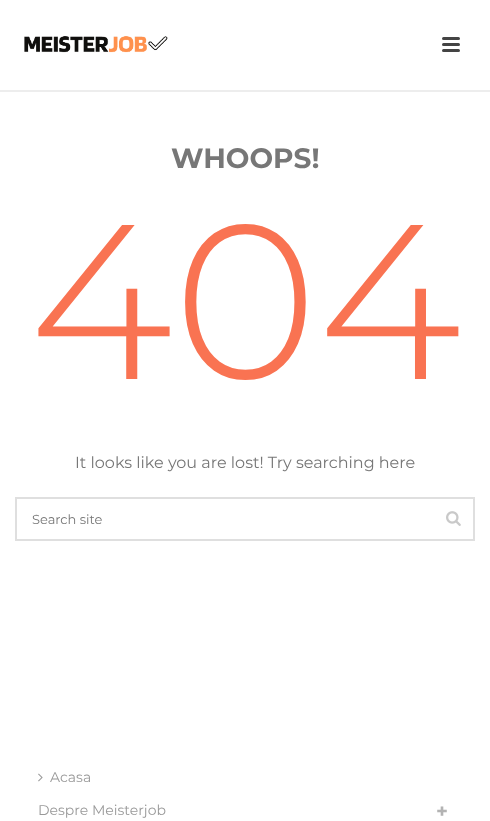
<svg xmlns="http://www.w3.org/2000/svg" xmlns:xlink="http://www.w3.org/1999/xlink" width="490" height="821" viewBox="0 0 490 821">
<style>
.cls-1{font:bold 28px Montserrat;fill:#777777}
.cls-2{font:300 220px Montserrat;fill:#f97352}
.cls-3{font:16px Montserrat;fill:#777777}
.cls-4{font:13px Montserrat;fill:#777777}
.cls-5{font:14px Montserrat;fill:#999999}
.cls-6{font:bold 20px Montserrat;fill:#b3b3b3}
</style>
<rect width="100%" height="100%" fill="#ffffff"/>
<rect fill="#ededed" x="0" y="90" width="490" height="2"/>
<image xlink:href="image0.png" x="24" y="36" width="144" height="17"/>
<rect fill="#444444" x="442" y="37" width="18" height="3" rx="1.5"/>
<rect fill="#444444" x="442" y="43" width="18" height="3" rx="1.5"/>
<rect fill="#444444" x="442" y="49" width="18" height="3" rx="1.5"/>
<rect fill="none" stroke="#dfdfdf" stroke-width="2" x="16" y="498" width="458" height="42"/>
<image xlink:href="image1.png" x="446" y="511" width="15" height="15"/>
<image xlink:href="image2.png" x="38" y="773" width="5" height="9"/>
<text class="cls-1" x="171" y="168">WHOOPS!</text>
<text class="cls-2" x="29" y="379">404</text>
<text class="cls-3" x="75" y="468">It looks like you are lost! Try searching here</text>
<text class="cls-4" x="32" y="524">Search site</text>
<text class="cls-5" x="50" y="782">Acasa</text>
<text class="cls-5" x="38" y="815">Despre Meisterjob</text>
<text class="cls-6" x="436" y="818">+</text>
</svg>
